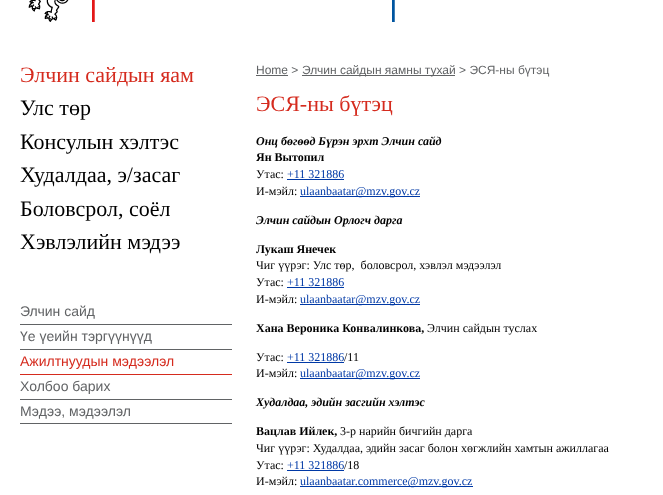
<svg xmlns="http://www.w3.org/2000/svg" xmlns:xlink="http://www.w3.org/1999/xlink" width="663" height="495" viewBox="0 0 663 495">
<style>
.cls-1{font:22px Liberation Serif;fill:#d52b1e}
.cls-2{font:22px Liberation Serif;fill:#000000}
.cls-3{font:12px Liberation Sans;fill:#616365}
.cls-4{font:italic bold 12px Liberation Serif;fill:#000000}
.cls-5{font:bold 12px Liberation Serif;fill:#000000}
.cls-6{font:12px Liberation Serif;fill:#000000}
.cls-7{font:12px Liberation Serif;fill:#0039a6}
.cls-8{font:14px Liberation Sans;fill:#616365}
.cls-9{font:14px Liberation Sans;fill:#d52b1e}
</style>
<rect width="100%" height="100%" fill="#ffffff"/>
<image xlink:href="image0.png" x="28" y="0" width="367" height="22"/>
<rect fill="#616365" x="256" y="75" width="32" height="1"/>
<rect fill="#616365" x="302" y="75" width="153" height="1"/>
<rect fill="#0039a6" x="287" y="179" width="57" height="1"/>
<rect fill="#0039a6" x="300" y="196" width="120" height="1"/>
<rect fill="#0039a6" x="287" y="287" width="57" height="1"/>
<rect fill="#0039a6" x="300" y="304" width="120" height="1"/>
<rect fill="#0039a6" x="287" y="362" width="57" height="1"/>
<rect fill="#0039a6" x="300" y="378" width="120" height="1"/>
<rect fill="#0039a6" x="287" y="470" width="57" height="1"/>
<rect fill="#0039a6" x="300" y="486" width="173" height="1"/>
<rect fill="#616365" x="20" y="324" width="212" height="1"/>
<rect fill="#616365" x="20" y="349" width="212" height="1"/>
<rect fill="#d52b1e" x="20" y="374" width="212" height="1"/>
<rect fill="#616365" x="20" y="399" width="212" height="1"/>
<rect fill="#616365" x="20" y="423" width="212" height="1"/>
<text class="cls-1" x="20" y="82">Элчин сайдын яам</text>
<text class="cls-2"><tspan x="20" y="115">Улс төр</tspan><tspan x="20" y="149">Консулын хэлтэс</tspan><tspan x="20" y="182">Худалдаа, э/засаг</tspan><tspan x="20" y="216">Боловсрол, соёл</tspan><tspan x="20" y="249">Хэвлэлийн мэдээ</tspan></text>
<text class="cls-3" x="256" y="74">Home &gt;</text>
<text class="cls-3" x="302" y="74">Элчин сайдын яамны тухай &gt; ЭСЯ-ны бүтэц</text>
<text class="cls-1" x="256" y="111">ЭСЯ-ны бүтэц</text>
<text class="cls-4" x="256" y="145">Онц бөгөөд Бүрэн эрхт Элчин сайд</text>
<text class="cls-5" x="256" y="161">Ян Вытопил</text>
<text class="cls-6" x="256" y="178">Утас:</text>
<text class="cls-7" x="287" y="178">+11 321886</text>
<text class="cls-6" x="256" y="195">И-мэйл:</text>
<text class="cls-7" x="300" y="195">ulaanbaatar@mzv.gov.cz</text>
<text class="cls-4" x="256" y="224">Элчин сайдын Орлогч дарга</text>
<text class="cls-5" x="256" y="253">Лукаш Янечек</text>
<text class="cls-6" xml:space="preserve"><tspan x="256" y="269">Чиг үүрэг: Улс төр,  боловсрол, хэвлэл мэдээлэл</tspan><tspan x="256" y="286">Утас:</tspan></text>
<text class="cls-7" x="287" y="286">+11 321886</text>
<text class="cls-6" x="256" y="303">И-мэйл:</text>
<text class="cls-7" x="300" y="303">ulaanbaatar@mzv.gov.cz</text>
<text class="cls-5" x="256" y="332">Хана Вероника Конвалинкова,</text>
<text class="cls-6" x="427" y="332">Элчин сайдын туслах</text>
<text class="cls-6" x="256" y="361">Утас:</text>
<text class="cls-7" x="287" y="361">+11 321886</text>
<text class="cls-6" x="344" y="361">/11</text>
<text class="cls-6" x="256" y="377">И-мэйл:</text>
<text class="cls-7" x="300" y="377">ulaanbaatar@mzv.gov.cz</text>
<text class="cls-4" x="256" y="406">Худалдаа, эдийн засгийн хэлтэс</text>
<text class="cls-5" x="256" y="435">Вацлав Ийлек,</text>
<text class="cls-6" x="340" y="435">3-р нарийн бичгийн дарга</text>
<text class="cls-6"><tspan x="256" y="452">Чиг үүрэг: Худалдаа, эдийн засаг болон хөгжлийн хамтын ажиллагаа</tspan><tspan x="256" y="469">Утас:</tspan></text>
<text class="cls-7" x="287" y="469">+11 321886</text>
<text class="cls-6" x="344" y="469">/18</text>
<text class="cls-6" x="256" y="485">И-мэйл:</text>
<text class="cls-7" x="300" y="485">ulaanbaatar.commerce@mzv.gov.cz</text>
<text class="cls-8"><tspan x="20" y="316">Элчин сайд</tspan><tspan x="20" y="341">Үе үеийн тэргүүнүүд</tspan></text>
<text class="cls-9" x="20" y="366">Ажилтнуудын мэдээлэл</text>
<text class="cls-8"><tspan x="20" y="391">Холбоо барих</tspan><tspan x="20" y="416">Мэдээ, мэдээлэл</tspan></text>
</svg>
